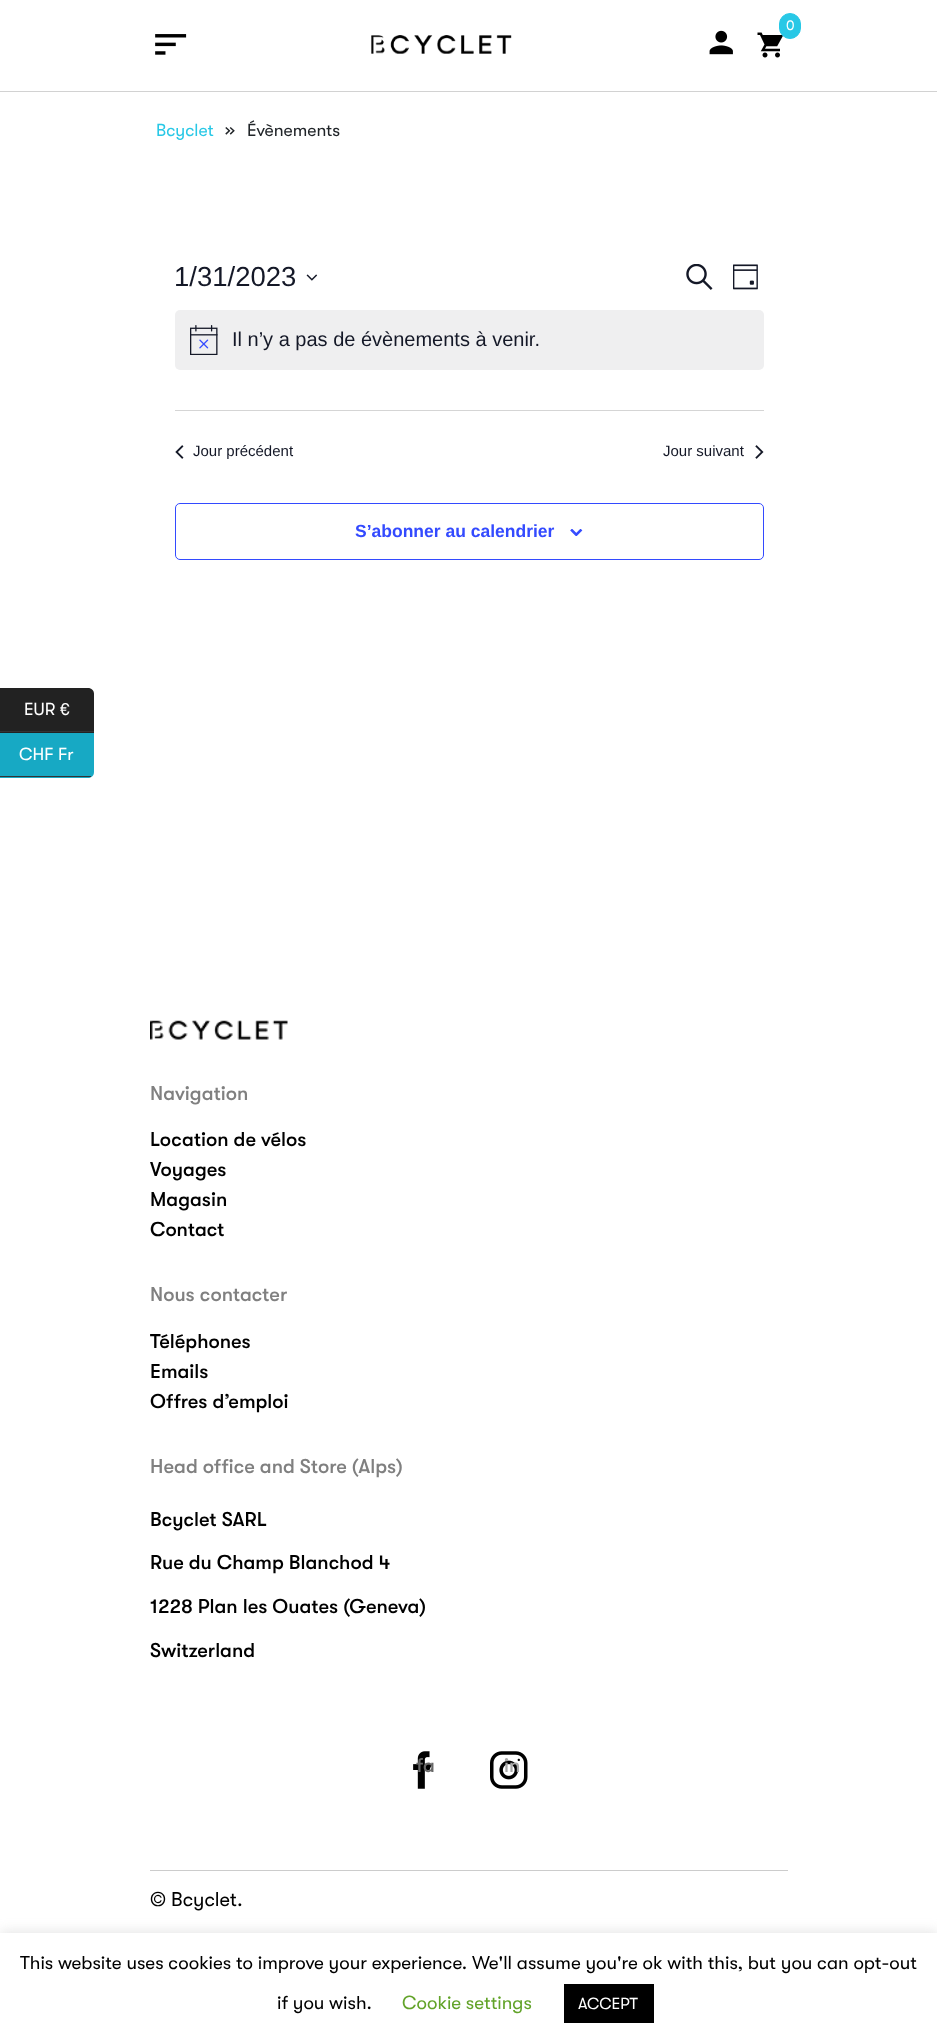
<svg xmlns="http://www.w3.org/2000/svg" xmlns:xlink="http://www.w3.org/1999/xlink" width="937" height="2043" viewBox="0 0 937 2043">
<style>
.cls-1{font:14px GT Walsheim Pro;fill:#ffffff}
.cls-2{font:17.5px GT Walsheim Pro;fill:#28c8e6}
.cls-3{font:20px GT Walsheim Pro;fill:#212529}
.cls-4{font:17.5px GT Walsheim Pro;fill:#212529}
.cls-5{font:27.5px Liberation Sans;fill:#141827}
.cls-6{font:20px Liberation Sans;fill:#141827}
.cls-7{font:15px Liberation Sans;fill:#141827}
.cls-8{font:bold 17.5px Liberation Sans;fill:#334aff}
.cls-9{font:17.5px GT Walsheim Pro;fill:#ffffff}
.cls-10{font:500 20px GT Walsheim Pro;fill:#808080}
.cls-11{font:500 20px GT Walsheim Pro;fill:#000000}
.cls-12{font:500 20px GT Walsheim Pro;fill:#686868}
.cls-13{font:500 20px GT Walsheim Pro;fill:#a8a8a8}
.cls-14{font:20px GT Walsheim Pro;fill:#000000}
.cls-15{font:18.75px GT Walsheim Pro;fill:#000000}
.cls-16{font:18.75px GT Walsheim Pro;fill:#62a329}
.cls-17{font:16px GT Walsheim Pro;fill:#ffffff}
</style>
<rect width="100%" height="100%" fill="#ffffff"/>
<rect fill="#d2d2d2" x="0" y="91" width="937" height="1"/>
<image xlink:href="image0.png" x="757" y="32" width="26" height="26"/>
<rect fill="#28c8e6" stroke="#28c8e6" x="779.5" y="13.5" width="21" height="25" rx="10.5"/>
<image xlink:href="image1.png" x="709" y="30" width="24" height="25"/>
<image xlink:href="image2.png" x="155" y="34" width="32" height="21"/>
<image xlink:href="image3.png" x="371" y="35" width="141" height="19"/>
<image xlink:href="image4.png" x="306" y="274" width="12" height="7"/>
<image xlink:href="image5.png" x="686" y="264" width="27" height="26"/>
<image xlink:href="image6.png" x="733" y="264" width="25" height="26"/>
<rect fill="#efeff0" x="175" y="310" width="589" height="60" rx="5"/>
<image xlink:href="image7.png" x="190" y="325" width="28" height="30"/>
<rect fill="#d5d5d5" x="175" y="410" width="589" height="1"/>
<image xlink:href="image8.png" x="175" y="445" width="9" height="14"/>
<image xlink:href="image9.png" x="755" y="445" width="9" height="14"/>
<rect fill="none" stroke="#334aff" x="175.5" y="503.5" width="588" height="56" rx="4.5"/>
<image xlink:href="image10.png" x="570" y="529" width="13" height="7"/>
<path fill="#222222" d="M0 688H88C91.5 688 94 690.5 94 694V733H0Z"/>
<rect fill="#333333" x="0" y="731" width="94" height="1"/>
<path fill="#17a9c4" d="M0 733H94V772C94 775.5 91.5 778 88 778H0Z"/>
<rect fill="#333333" x="0" y="776" width="91" height="1"/>
<image xlink:href="image11.png" x="150" y="1020" width="138" height="20"/>
<image xlink:href="image12.png" x="413" y="1751" width="19" height="38"/>
<image xlink:href="image13.png" x="490" y="1751" width="38" height="38"/>
<rect fill="#cccccc" x="150" y="1870" width="638" height="1"/>
<rect fill="#acabab" fill-opacity="0.3" filter="blur(6px)" x="0" y="1931" width="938" height="112"/>
<rect fill="#ffffff" x="0" y="1933" width="937" height="110"/>
<rect fill="#000000" x="564" y="1984" width="90" height="39"/>
<text class="cls-1" x="786" y="30">0</text>
<text class="cls-2" x="156" y="136">Bcyclet</text>
<text class="cls-3" x="225" y="136">»</text>
<text class="cls-4" x="247" y="136">Évènements</text>
<text class="cls-5" x="174" y="286">1/31/2023</text>
<text class="cls-6" x="232" y="346">Il n’y a pas de évènements à venir.</text>
<text class="cls-7" x="193" y="456">Jour précédent</text>
<text class="cls-7" x="663" y="456">Jour suivant</text>
<text class="cls-8" x="355" y="537">S’abonner au calendrier</text>
<text class="cls-9" x="24" y="715">EUR €</text>
<text class="cls-9" x="19" y="760">CHF Fr</text>
<text class="cls-10" x="150" y="1100">Navigation</text>
<text class="cls-11"><tspan x="150" y="1146">Location de vélos</tspan><tspan x="150" y="1176">Voyages</tspan><tspan x="150" y="1206">Magasin</tspan><tspan x="150" y="1236">Contact</tspan></text>
<text class="cls-10" x="150" y="1301">Nous contacter</text>
<text class="cls-11"><tspan x="150" y="1348">Téléphones</tspan><tspan x="150" y="1378">Emails</tspan><tspan x="150" y="1408">Offres d’emploi</tspan></text>
<text class="cls-10" x="150" y="1473">Head office and Store (Alps)</text>
<text class="cls-11" x="150" y="1526">Bcyclet SARL</text>
<text class="cls-11" x="150" y="1569">Rue du Champ Blanchod 4</text>
<text class="cls-11" x="150" y="1613">1228 Plan les Ouates (Geneva)</text>
<text class="cls-11" x="150" y="1657">Switzerland</text>
<text class="cls-12" x="416" y="1772">fa</text>
<text class="cls-13" x="504" y="1772">in</text>
<text class="cls-14" x="150" y="1906">© Bcyclet.</text>
<text class="cls-15" x="20" y="1969">This website uses cookies to improve your experience. We'll assume you're ok with this, but you can opt-out</text>
<text class="cls-15" x="277" y="2009">if you wish.</text>
<text class="cls-16" x="402" y="2009">Cookie settings</text>
<text class="cls-17" x="578" y="2009">ACCEPT</text>
</svg>
